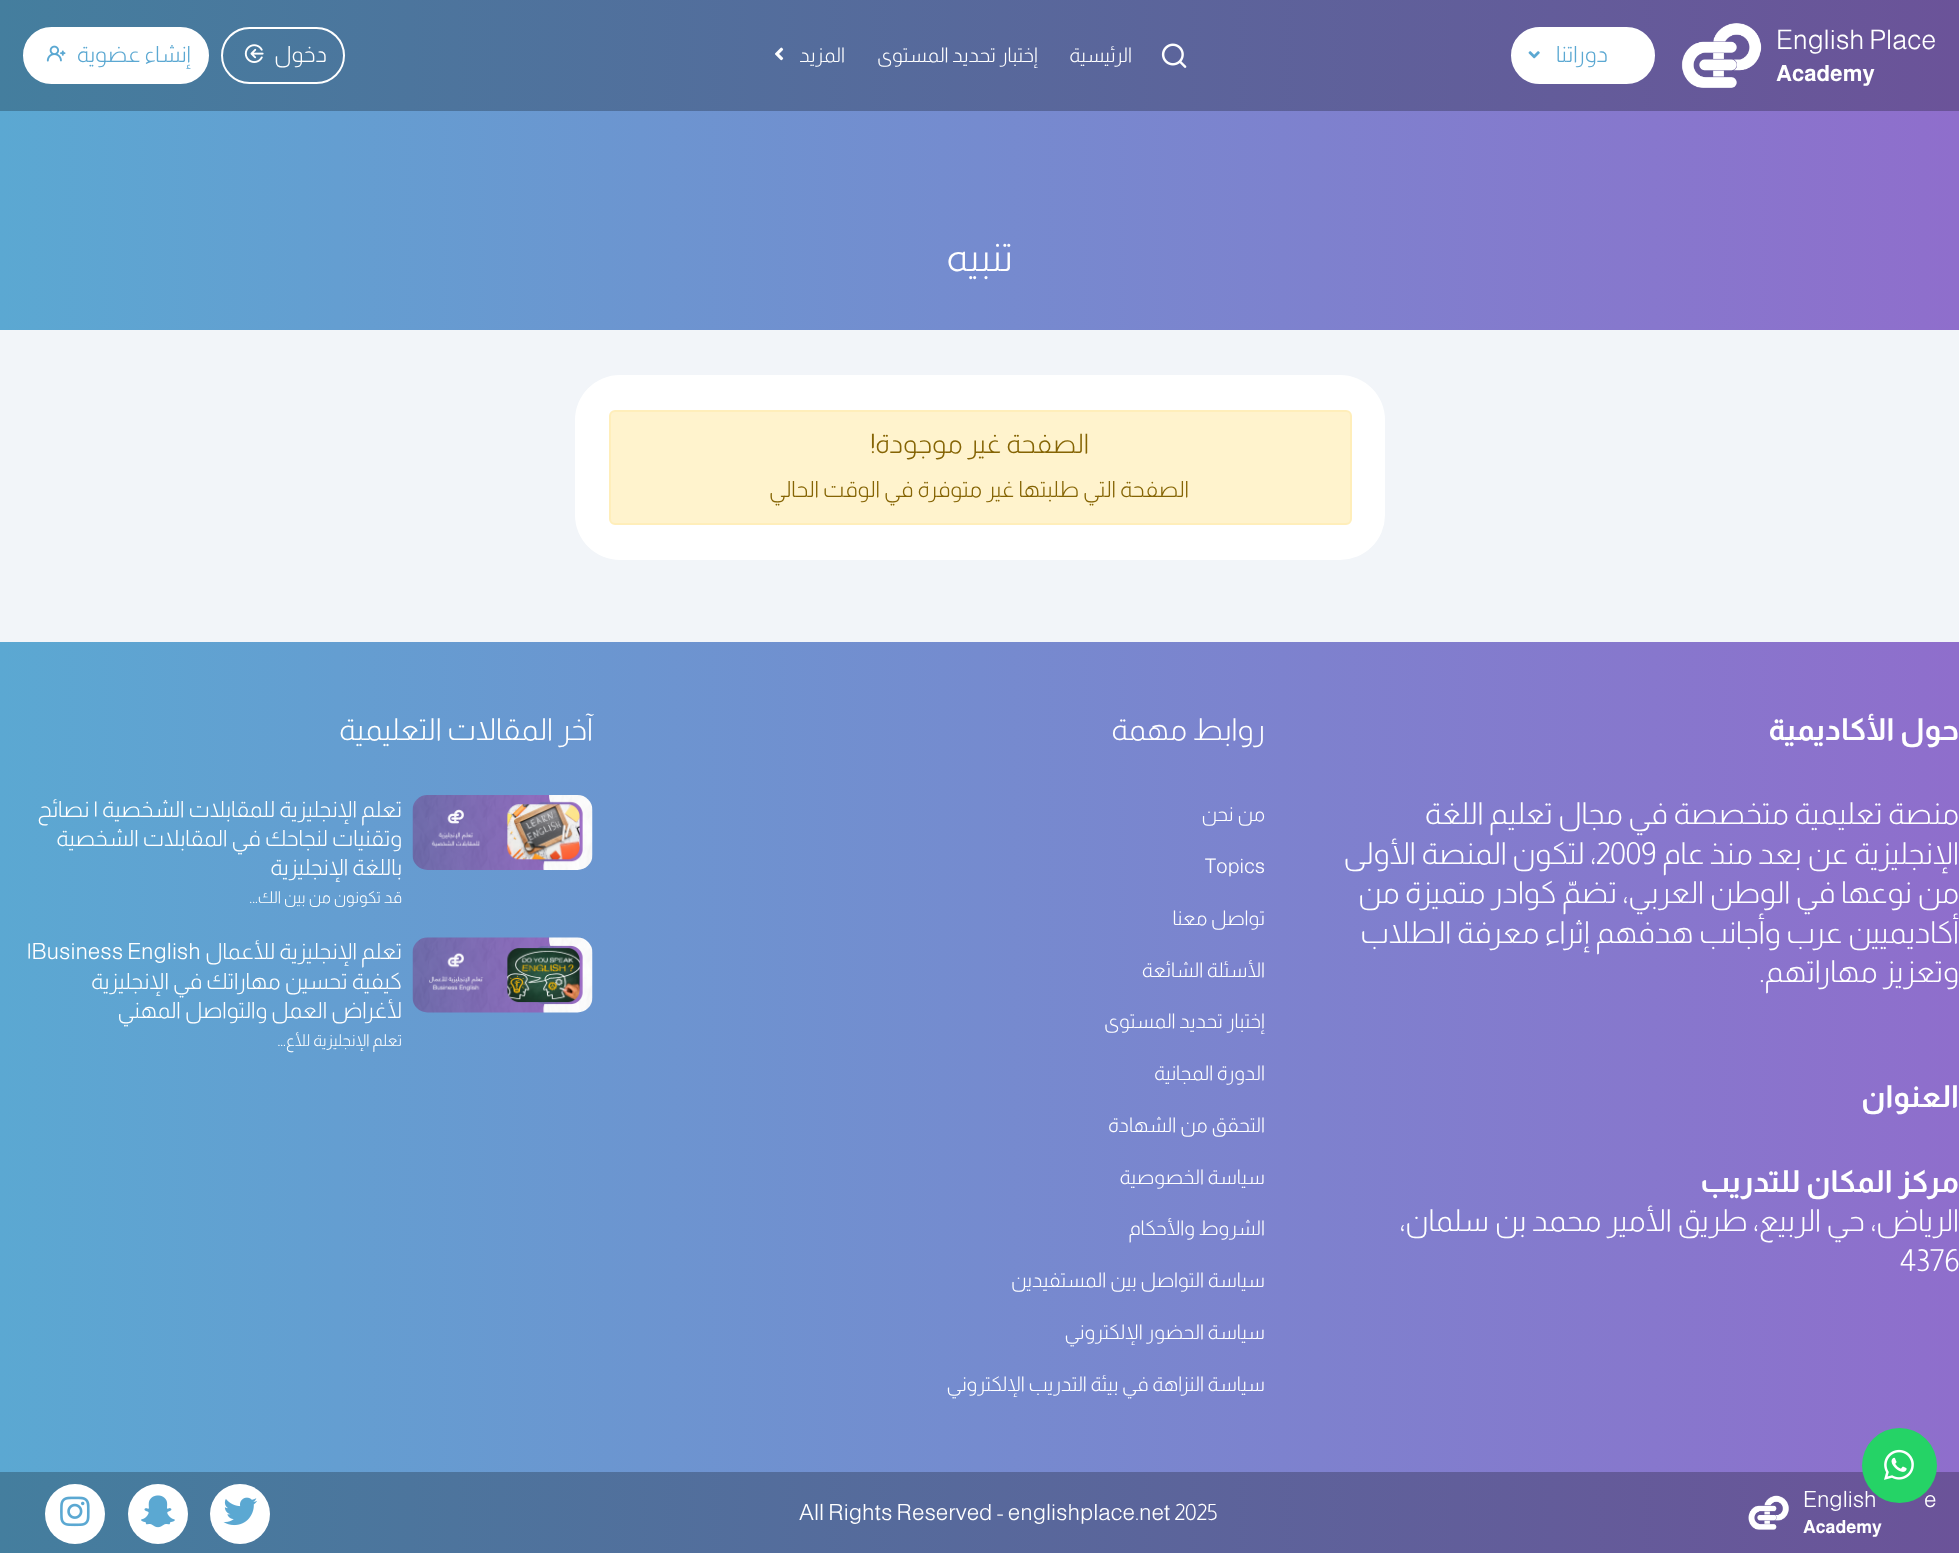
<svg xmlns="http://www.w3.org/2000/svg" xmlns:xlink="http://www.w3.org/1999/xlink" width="1959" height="1553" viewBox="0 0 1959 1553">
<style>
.cls-1{font:300 27px Almarai;fill:#ffffff}
.cls-2{font:bold 22.5px Almarai;fill:#ffffff}
.cls-3{font:300 22.5px Almarai;direction:rtl;fill:#5ba8d2}
.cls-4{font:300 20.25px Almarai;direction:rtl;fill:#ffffff}
.cls-5{font:300 22.5px Almarai;direction:rtl;fill:#ffffff}
.cls-6{font:300 40px Almarai;direction:rtl;fill:#ffffff}
.cls-7{font:300 27px Almarai;direction:rtl;fill:#856404}
.cls-8{font:300 22.5px Almarai;direction:rtl;fill:#856404}
.cls-9{font:bold 30.4px Almarai;direction:rtl;fill:#ffffff}
.cls-10{font:300 30.4px Almarai;direction:rtl;fill:#ffffff}
.cls-11{font:300 30.4px Almarai;fill:#ffffff}
.cls-12{font:300 20.25px Almarai;fill:#ffffff}
.cls-13{font:300 16.25px Almarai;direction:rtl;fill:#ffffff}
.cls-14{font:300 22.5px Almarai;fill:#ffffff}
.cls-15{font:bold 18px Almarai;fill:#ffffff}
</style>
<defs>
<linearGradient id="g1" gradientUnits="userSpaceOnUse" x1="0" y1="165" x2="1959" y2="165"><stop offset="0" stop-color="#447e9e"/><stop offset="1" stop-color="#6b5399"/></linearGradient>
<linearGradient id="g2" gradientUnits="userSpaceOnUse" x1="0" y1="165" x2="1959" y2="165"><stop offset="0" stop-color="#5ba8d2"/><stop offset="1" stop-color="#8f6ecc"/></linearGradient>
<linearGradient id="g3" gradientUnits="userSpaceOnUse" x1="0" y1="1098" x2="1959" y2="1098"><stop offset="0" stop-color="#5ba8d2"/><stop offset="1" stop-color="#8f6ecc"/></linearGradient>
<linearGradient id="g4" gradientUnits="userSpaceOnUse" x1="0" y1="1098" x2="1959" y2="1098"><stop offset="0" stop-color="#447e9e"/><stop offset="1" stop-color="#6b5399"/></linearGradient>
</defs>
<rect width="100%" height="100%" fill="#f2f5f9"/>
<rect fill="url(#g1)" x="0" y="0" width="1959" height="111"/>
<image xlink:href="image0.png" x="1681" y="23" width="81" height="65"/>
<rect fill="#ffffff" stroke="#ffffff" stroke-width="2" x="1512" y="28" width="142" height="55" rx="27.5"/>
<image xlink:href="image1.png" x="1528" y="51" width="12" height="8"/>
<image xlink:href="image2.png" x="1161" y="43" width="26" height="25"/>
<image xlink:href="image3.png" x="775" y="47" width="9" height="14"/>
<rect fill="none" stroke="#ffffff" stroke-width="2" x="222" y="28" width="122" height="55" rx="27.5"/>
<image xlink:href="image4.png" x="244" y="44" width="20" height="19"/>
<rect fill="#ffffff" stroke="#ffffff" stroke-width="2" x="24" y="28" width="184" height="55" rx="27.5"/>
<image xlink:href="image5.png" x="46" y="45" width="20" height="17"/>
<rect fill="url(#g2)" x="0" y="111" width="1959" height="219"/>
<rect fill="#ffffff" x="575" y="375" width="810" height="185" rx="45"/>
<rect fill="#fff3cd" stroke="#ffeeba" stroke-width="2" x="610" y="411" width="741" height="113" rx="5"/>
<rect fill="url(#g3)" x="0" y="642" width="1959" height="830"/>
<rect fill="url(#g4)" x="0" y="1472" width="1959" height="81"/>
<image xlink:href="image6.png" x="412" y="795" width="181" height="75"/>
<image xlink:href="image7.png" x="412" y="937" width="181" height="76"/>
<image xlink:href="image8.png" x="1748" y="1495" width="41" height="35"/>
<circle fill="#ffffff" cx="240" cy="1514" r="30"/>
<image xlink:href="image9.png" x="223" y="1497" width="34" height="29"/>
<circle fill="#ffffff" cx="158" cy="1514" r="30"/>
<image xlink:href="image10.png" x="141" y="1495" width="34" height="33"/>
<circle fill="#ffffff" cx="75" cy="1514" r="30"/>
<image xlink:href="image11.png" x="60" y="1496" width="30" height="31"/>
<text class="cls-1" x="1776" y="49">English Place</text>
<text class="cls-2" x="1776" y="81">Academy</text>
<text class="cls-3" x="1608" y="62">دوراتنا</text>
<text class="cls-4" x="1132" y="62">الرئيسية</text>
<text class="cls-4" x="1038" y="62">إختبار تحديد المستوى</text>
<text class="cls-4" x="845" y="62">المزيد</text>
<text class="cls-5" x="327" y="62">دخول</text>
<text class="cls-3" x="191" y="62">إنشاء عضوية</text>
<text class="cls-6" x="1013" y="271">تنبيه</text>
<text class="cls-7" x="1089" y="453">الصفحة غير موجودة!</text>
<text class="cls-8" x="1189" y="497">الصفحة التي طلبتها غير متوفرة في الوقت الحالي</text>
<text class="cls-9" x="1959" y="740">حول الأكاديمية</text>
<text class="cls-10"><tspan x="1959" y="824">منصة تعليمية متخصصة في مجال تعليم اللغة</tspan><tspan x="1959" y="864">الإنجليزية عن بعد منذ عام</tspan></text>
<text class="cls-11" x="1596" y="864">2009</text>
<text class="cls-10" x="1596" y="864">، لتكون المنصة الأولى</text>
<text class="cls-10"><tspan x="1959" y="903">من نوعها في الوطن العربي، تضمّ كوادر متميزة من</tspan><tspan x="1959" y="943">أكاديميين عرب وأجانب هدفهم إثراء معرفة الطلاب</tspan><tspan x="1959" y="982">وتعزيز مهاراتهم.</tspan></text>
<text class="cls-9" x="1959" y="1107">العنوان</text>
<text class="cls-9" x="1959" y="1192">مركز المكان للتدريب</text>
<text class="cls-10" x="1959" y="1231">الرياض، حي الربيع، طريق الأمير محمد بن سلمان،</text>
<text class="cls-11" x="1900" y="1271">4376</text>
<text class="cls-10" x="1265" y="740">روابط مهمة</text>
<text class="cls-4" x="1265" y="821">من نحن</text>
<text class="cls-12" x="1205" y="873">Topics</text>
<text class="cls-4" x="1265" y="925">تواصل معنا</text>
<text class="cls-4" x="1265" y="977">الأسئلة الشائعة</text>
<text class="cls-4" x="1265" y="1028">إختبار تحديد المستوى</text>
<text class="cls-4" x="1265" y="1080">الدورة المجانية</text>
<text class="cls-4" x="1265" y="1132">التحقق من الشهادة</text>
<text class="cls-4" x="1265" y="1184">سياسة الخصوصية</text>
<text class="cls-4" x="1265" y="1235">الشروط والأحكام</text>
<text class="cls-4" x="1265" y="1287">سياسة التواصل بين المستفيدين</text>
<text class="cls-4" x="1265" y="1339">سياسة الحضور الإلكتروني</text>
<text class="cls-4" x="1265" y="1391">سياسة النزاهة في بيئة التدريب الإلكتروني</text>
<text class="cls-10" x="593" y="740">آخر المقالات التعليمية</text>
<text class="cls-5"><tspan x="402" y="817">تعلم الإنجليزية للمقابلات الشخصية | نصائح</tspan><tspan x="402" y="846">وتقنيات لنجاحك في المقابلات الشخصية</tspan><tspan x="402" y="875">باللغة الإنجليزية</tspan></text>
<text class="cls-13" x="402" y="903">قد تكونون من بين الك...</text>
<text class="cls-5" x="402" y="959">تعلم الإنجليزية للأعمال</text>
<text class="cls-14" x="27" y="959">|Business English</text>
<text class="cls-5"><tspan x="402" y="989">كيفية تحسين مهاراتك في الإنجليزية</tspan><tspan x="402" y="1018">لأغراض العمل والتواصل المهني</tspan></text>
<text class="cls-13" x="402" y="1046">تعلم الإنجليزية للأع...</text>
<text class="cls-14" x="1924" y="1507">e</text>
<text class="cls-14" x="1803" y="1507">English</text>
<text class="cls-15" x="1803" y="1533">Academy</text>
<text class="cls-14" x="799" y="1520">All Rights Reserved - englishplace.net 2025</text>
<circle fill="#25d366" cx="1899.5" cy="1465.5" r="37.5"/>
<image xlink:href="image12.png" x="1884" y="1449" width="30" height="31"/>
</svg>
